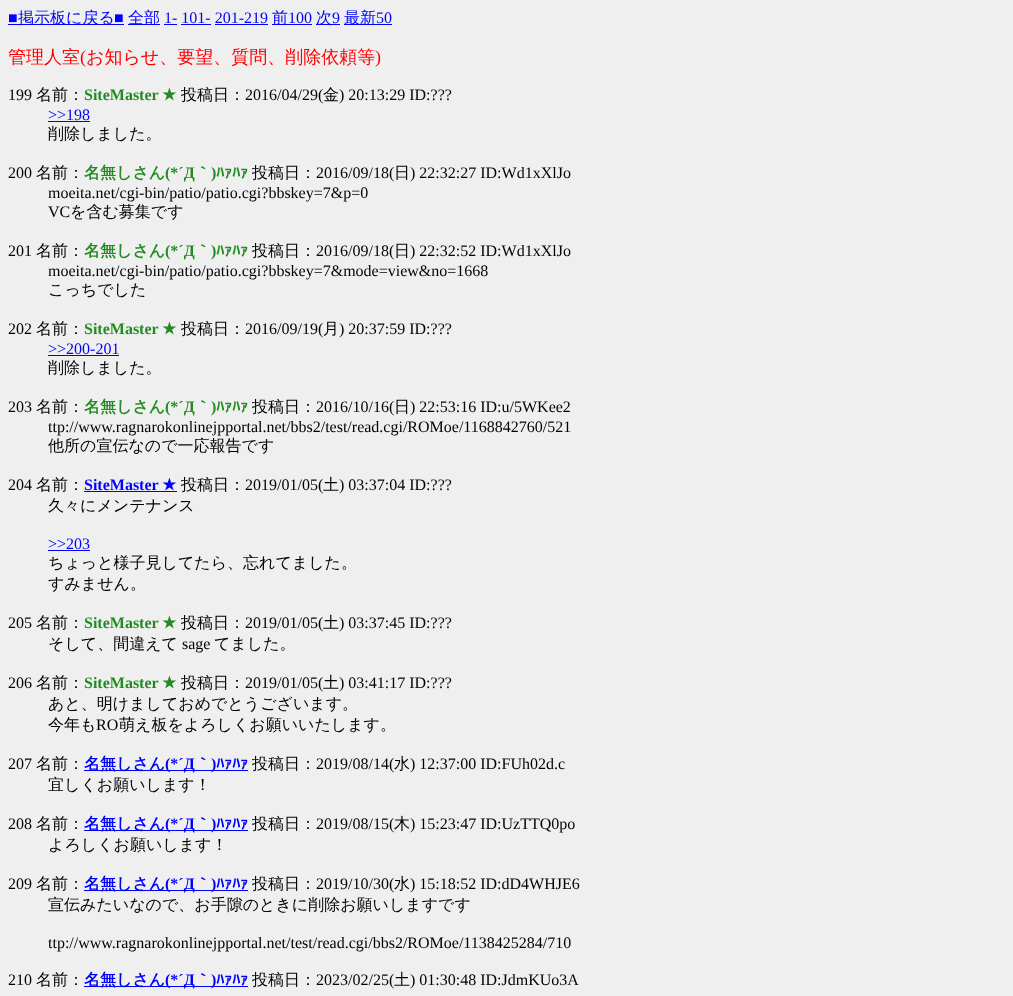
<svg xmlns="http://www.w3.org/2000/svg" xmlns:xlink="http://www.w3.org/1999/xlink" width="1013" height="996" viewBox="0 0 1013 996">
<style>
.cls-1{font:16px Liberation Serif;fill:#0000ff}
.cls-2{font:500 16px WenQuanYi Zen Hei;fill:#0000ff}
.cls-3{font:500 18px WenQuanYi Zen Hei;fill:#ff0000}
.cls-4{font:18px Liberation Serif;fill:#ff0000}
.cls-5{font:16px Liberation Serif;fill:#000000}
.cls-6{font:500 16px WenQuanYi Zen Hei;fill:#000000}
.cls-7{font:bold 16px Liberation Serif;fill:#228b22}
.cls-8{font:bold 16px DejaVu Sans;fill:#228b22}
.cls-9{font:bold 16px WenQuanYi Zen Hei;fill:#228b22}
.cls-10{font:bold 16px IPAGothic;fill:#228b22}
.cls-11{font:bold 16px Liberation Serif;fill:#0000ff}
.cls-12{font:bold 16px DejaVu Sans;fill:#0000ff}
.cls-13{font:bold 16px WenQuanYi Zen Hei;fill:#0000ff}
.cls-14{font:bold 16px IPAGothic;fill:#0000ff}
</style>
<rect width="100%" height="100%" fill="#efefef"/>
<rect fill="#0000ff" x="8" y="24" width="116" height="1"/>
<rect fill="#0000ff" x="128" y="24" width="32" height="1"/>
<rect fill="#0000ff" x="164" y="24" width="13" height="1"/>
<rect fill="#0000ff" x="272" y="24" width="40" height="1"/>
<rect fill="#0000ff" x="316" y="24" width="24" height="1"/>
<rect fill="#0000ff" x="344" y="24" width="48" height="1"/>
<rect fill="#0000ff" x="181" y="24" width="30" height="1"/>
<rect fill="#0000ff" x="215" y="24" width="53" height="1"/>
<rect fill="#0000ff" x="48" y="121" width="42" height="1"/>
<rect fill="#0000ff" x="48" y="355" width="71" height="1"/>
<rect fill="#0000ff" x="84" y="491" width="93" height="1"/>
<rect fill="#0000ff" x="48" y="550" width="42" height="1"/>
<rect fill="#0000ff" x="84" y="770" width="164" height="1"/>
<rect fill="#0000ff" x="84" y="830" width="164" height="1"/>
<rect fill="#0000ff" x="84" y="890" width="164" height="1"/>
<rect fill="#0000ff" x="84" y="986" width="164" height="1"/>
<text class="cls-1" x="8" y="23">■</text>
<text class="cls-2" x="18" y="23">掲示板に戻る</text>
<text class="cls-1" x="114" y="23">■</text>
<text class="cls-2" x="128" y="23">全部</text>
<text class="cls-1" x="164" y="23">1- 101- 201-219</text>
<text class="cls-2" x="272" y="23">前</text>
<text class="cls-1" x="288" y="23">100</text>
<text class="cls-2" x="316" y="23">次</text>
<text class="cls-1" x="332" y="23">9</text>
<text class="cls-2" x="344" y="23">最新</text>
<text class="cls-1" x="376" y="23">50</text>
<text class="cls-3" x="8" y="63">管理人室</text>
<text class="cls-4" x="80" y="63">(</text>
<text class="cls-3" x="86" y="63">お知らせ、要望、質問、削除依頼等</text>
<text class="cls-4" x="375" y="63">)</text>
<text class="cls-5" x="8" y="100">199</text>
<text class="cls-6" x="36" y="100">名前：</text>
<text class="cls-7" x="84" y="100">SiteMaster</text>
<text class="cls-8" x="162" y="100">★</text>
<text class="cls-6" x="181" y="100">投稿日：</text>
<text class="cls-5" x="245" y="100">2016/04/29(</text>
<text class="cls-6" x="323" y="100">金</text>
<text class="cls-5" x="339" y="100">) 20:13:29 ID:???</text>
<text class="cls-1" x="48" y="120">&gt;&gt;198</text>
<text class="cls-6" x="48" y="139">削除しました。</text>
<text class="cls-5" x="8" y="178">200</text>
<text class="cls-6" x="36" y="178">名前：</text>
<text class="cls-9" x="84" y="178">名無しさん</text>
<text class="cls-7" x="165" y="178">(*´Д</text>
<text class="cls-9" x="195" y="178">｀</text>
<text class="cls-7" x="211" y="178">)</text>
<text class="cls-10" x="216" y="178">ﾊｧﾊｧ</text>
<text class="cls-6" x="252" y="178">投稿日：</text>
<text class="cls-5" x="316" y="178">2016/09/18(</text>
<text class="cls-6" x="394" y="178">日</text>
<text class="cls-5" x="410" y="178">) 22:32:27 ID:Wd1xXlJo</text>
<text class="cls-5"><tspan x="48" y="198">moeita.net/cgi-bin/patio/patio.cgi?bbskey=7&amp;p=0</tspan><tspan x="48" y="217">VC</tspan></text>
<text class="cls-6" x="70" y="217">を含む募集です</text>
<text class="cls-5" x="8" y="256">201</text>
<text class="cls-6" x="36" y="256">名前：</text>
<text class="cls-9" x="84" y="256">名無しさん</text>
<text class="cls-7" x="165" y="256">(*´Д</text>
<text class="cls-9" x="195" y="256">｀</text>
<text class="cls-7" x="211" y="256">)</text>
<text class="cls-10" x="216" y="256">ﾊｧﾊｧ</text>
<text class="cls-6" x="252" y="256">投稿日：</text>
<text class="cls-5" x="316" y="256">2016/09/18(</text>
<text class="cls-6" x="394" y="256">日</text>
<text class="cls-5" x="410" y="256">) 22:32:52 ID:Wd1xXlJo</text>
<text class="cls-5" x="48" y="276">moeita.net/cgi-bin/patio/patio.cgi?bbskey=7&amp;mode=view&amp;no=1668</text>
<text class="cls-6" x="48" y="295">こっちでした</text>
<text class="cls-5" x="8" y="334">202</text>
<text class="cls-6" x="36" y="334">名前：</text>
<text class="cls-7" x="84" y="334">SiteMaster</text>
<text class="cls-8" x="162" y="334">★</text>
<text class="cls-6" x="181" y="334">投稿日：</text>
<text class="cls-5" x="245" y="334">2016/09/19(</text>
<text class="cls-6" x="323" y="334">月</text>
<text class="cls-5" x="339" y="334">) 20:37:59 ID:???</text>
<text class="cls-1" x="48" y="354">&gt;&gt;200-201</text>
<text class="cls-6" x="48" y="373">削除しました。</text>
<text class="cls-5" x="8" y="412">203</text>
<text class="cls-6" x="36" y="412">名前：</text>
<text class="cls-9" x="84" y="412">名無しさん</text>
<text class="cls-7" x="165" y="412">(*´Д</text>
<text class="cls-9" x="195" y="412">｀</text>
<text class="cls-7" x="211" y="412">)</text>
<text class="cls-10" x="216" y="412">ﾊｧﾊｧ</text>
<text class="cls-6" x="252" y="412">投稿日：</text>
<text class="cls-5" x="316" y="412">2016/10/16(</text>
<text class="cls-6" x="394" y="412">日</text>
<text class="cls-5" x="410" y="412">) 22:53:16 ID:u/5WKee2</text>
<text class="cls-5" x="48" y="432">ttp://www.ragnarokonlinejpportal.net/bbs2/test/read.cgi/ROMoe/1168842760/521</text>
<text class="cls-6" x="48" y="451">他所の宣伝なので一応報告です</text>
<text class="cls-5" x="8" y="490">204</text>
<text class="cls-6" x="36" y="490">名前：</text>
<text class="cls-11" x="84" y="490">SiteMaster</text>
<text class="cls-12" x="162" y="490">★</text>
<text class="cls-6" x="181" y="490">投稿日：</text>
<text class="cls-5" x="245" y="490">2019/01/05(</text>
<text class="cls-6" x="323" y="490">土</text>
<text class="cls-5" x="339" y="490">) 03:37:04 ID:???</text>
<text class="cls-6" x="48" y="511">久々にメンテナンス</text>
<text class="cls-1" x="48" y="549">&gt;&gt;203</text>
<text class="cls-6"><tspan x="48" y="568">ちょっと様子見してたら、忘れてました。</tspan><tspan x="48" y="589">すみません。</tspan></text>
<text class="cls-5" x="8" y="628">205</text>
<text class="cls-6" x="36" y="628">名前：</text>
<text class="cls-7" x="84" y="628">SiteMaster</text>
<text class="cls-8" x="162" y="628">★</text>
<text class="cls-6" x="181" y="628">投稿日：</text>
<text class="cls-5" x="245" y="628">2019/01/05(</text>
<text class="cls-6" x="323" y="628">土</text>
<text class="cls-5" x="339" y="628">) 03:37:45 ID:???</text>
<text class="cls-6" x="48" y="649">そして、間違えて</text>
<text class="cls-5" x="182" y="649">sage</text>
<text class="cls-6" x="214" y="649">てました。</text>
<text class="cls-5" x="8" y="688">206</text>
<text class="cls-6" x="36" y="688">名前：</text>
<text class="cls-7" x="84" y="688">SiteMaster</text>
<text class="cls-8" x="162" y="688">★</text>
<text class="cls-6" x="181" y="688">投稿日：</text>
<text class="cls-5" x="245" y="688">2019/01/05(</text>
<text class="cls-6" x="323" y="688">土</text>
<text class="cls-5" x="339" y="688">) 03:41:17 ID:???</text>
<text class="cls-6"><tspan x="48" y="709">あと、明けましておめでとうございます。</tspan><tspan x="48" y="730">今年も</tspan></text>
<text class="cls-5" x="96" y="730">RO</text>
<text class="cls-6" x="119" y="730">萌え板をよろしくお願いいたします。</text>
<text class="cls-5" x="8" y="769">207</text>
<text class="cls-6" x="36" y="769">名前：</text>
<text class="cls-13" x="84" y="769">名無しさん</text>
<text class="cls-11" x="165" y="769">(*´Д</text>
<text class="cls-13" x="195" y="769">｀</text>
<text class="cls-11" x="211" y="769">)</text>
<text class="cls-14" x="216" y="769">ﾊｧﾊｧ</text>
<text class="cls-6" x="252" y="769">投稿日：</text>
<text class="cls-5" x="316" y="769">2019/08/14(</text>
<text class="cls-6" x="394" y="769">水</text>
<text class="cls-5" x="410" y="769">) 12:37:00 ID:FUh02d.c</text>
<text class="cls-6" x="48" y="790">宜しくお願いします！</text>
<text class="cls-5" x="8" y="829">208</text>
<text class="cls-6" x="36" y="829">名前：</text>
<text class="cls-13" x="84" y="829">名無しさん</text>
<text class="cls-11" x="165" y="829">(*´Д</text>
<text class="cls-13" x="195" y="829">｀</text>
<text class="cls-11" x="211" y="829">)</text>
<text class="cls-14" x="216" y="829">ﾊｧﾊｧ</text>
<text class="cls-6" x="252" y="829">投稿日：</text>
<text class="cls-5" x="316" y="829">2019/08/15(</text>
<text class="cls-6" x="394" y="829">木</text>
<text class="cls-5" x="410" y="829">) 15:23:47 ID:UzTTQ0po</text>
<text class="cls-6" x="48" y="850">よろしくお願いします！</text>
<text class="cls-5" x="8" y="889">209</text>
<text class="cls-6" x="36" y="889">名前：</text>
<text class="cls-13" x="84" y="889">名無しさん</text>
<text class="cls-11" x="165" y="889">(*´Д</text>
<text class="cls-13" x="195" y="889">｀</text>
<text class="cls-11" x="211" y="889">)</text>
<text class="cls-14" x="216" y="889">ﾊｧﾊｧ</text>
<text class="cls-6" x="252" y="889">投稿日：</text>
<text class="cls-5" x="316" y="889">2019/10/30(</text>
<text class="cls-6" x="394" y="889">水</text>
<text class="cls-5" x="410" y="889">) 15:18:52 ID:dD4WHJE6</text>
<text class="cls-6" x="48" y="910">宣伝みたいなので、お手隙のときに削除お願いしますです</text>
<text class="cls-5" x="48" y="948">ttp://www.ragnarokonlinejpportal.net/test/read.cgi/bbs2/ROMoe/1138425284/710</text>
<text class="cls-5" x="8" y="985">210</text>
<text class="cls-6" x="36" y="985">名前：</text>
<text class="cls-13" x="84" y="985">名無しさん</text>
<text class="cls-11" x="165" y="985">(*´Д</text>
<text class="cls-13" x="195" y="985">｀</text>
<text class="cls-11" x="211" y="985">)</text>
<text class="cls-14" x="216" y="985">ﾊｧﾊｧ</text>
<text class="cls-6" x="252" y="985">投稿日：</text>
<text class="cls-5" x="316" y="985">2023/02/25(</text>
<text class="cls-6" x="394" y="985">土</text>
<text class="cls-5" x="410" y="985">) 01:30:48 ID:JdmKUo3A</text>
</svg>
